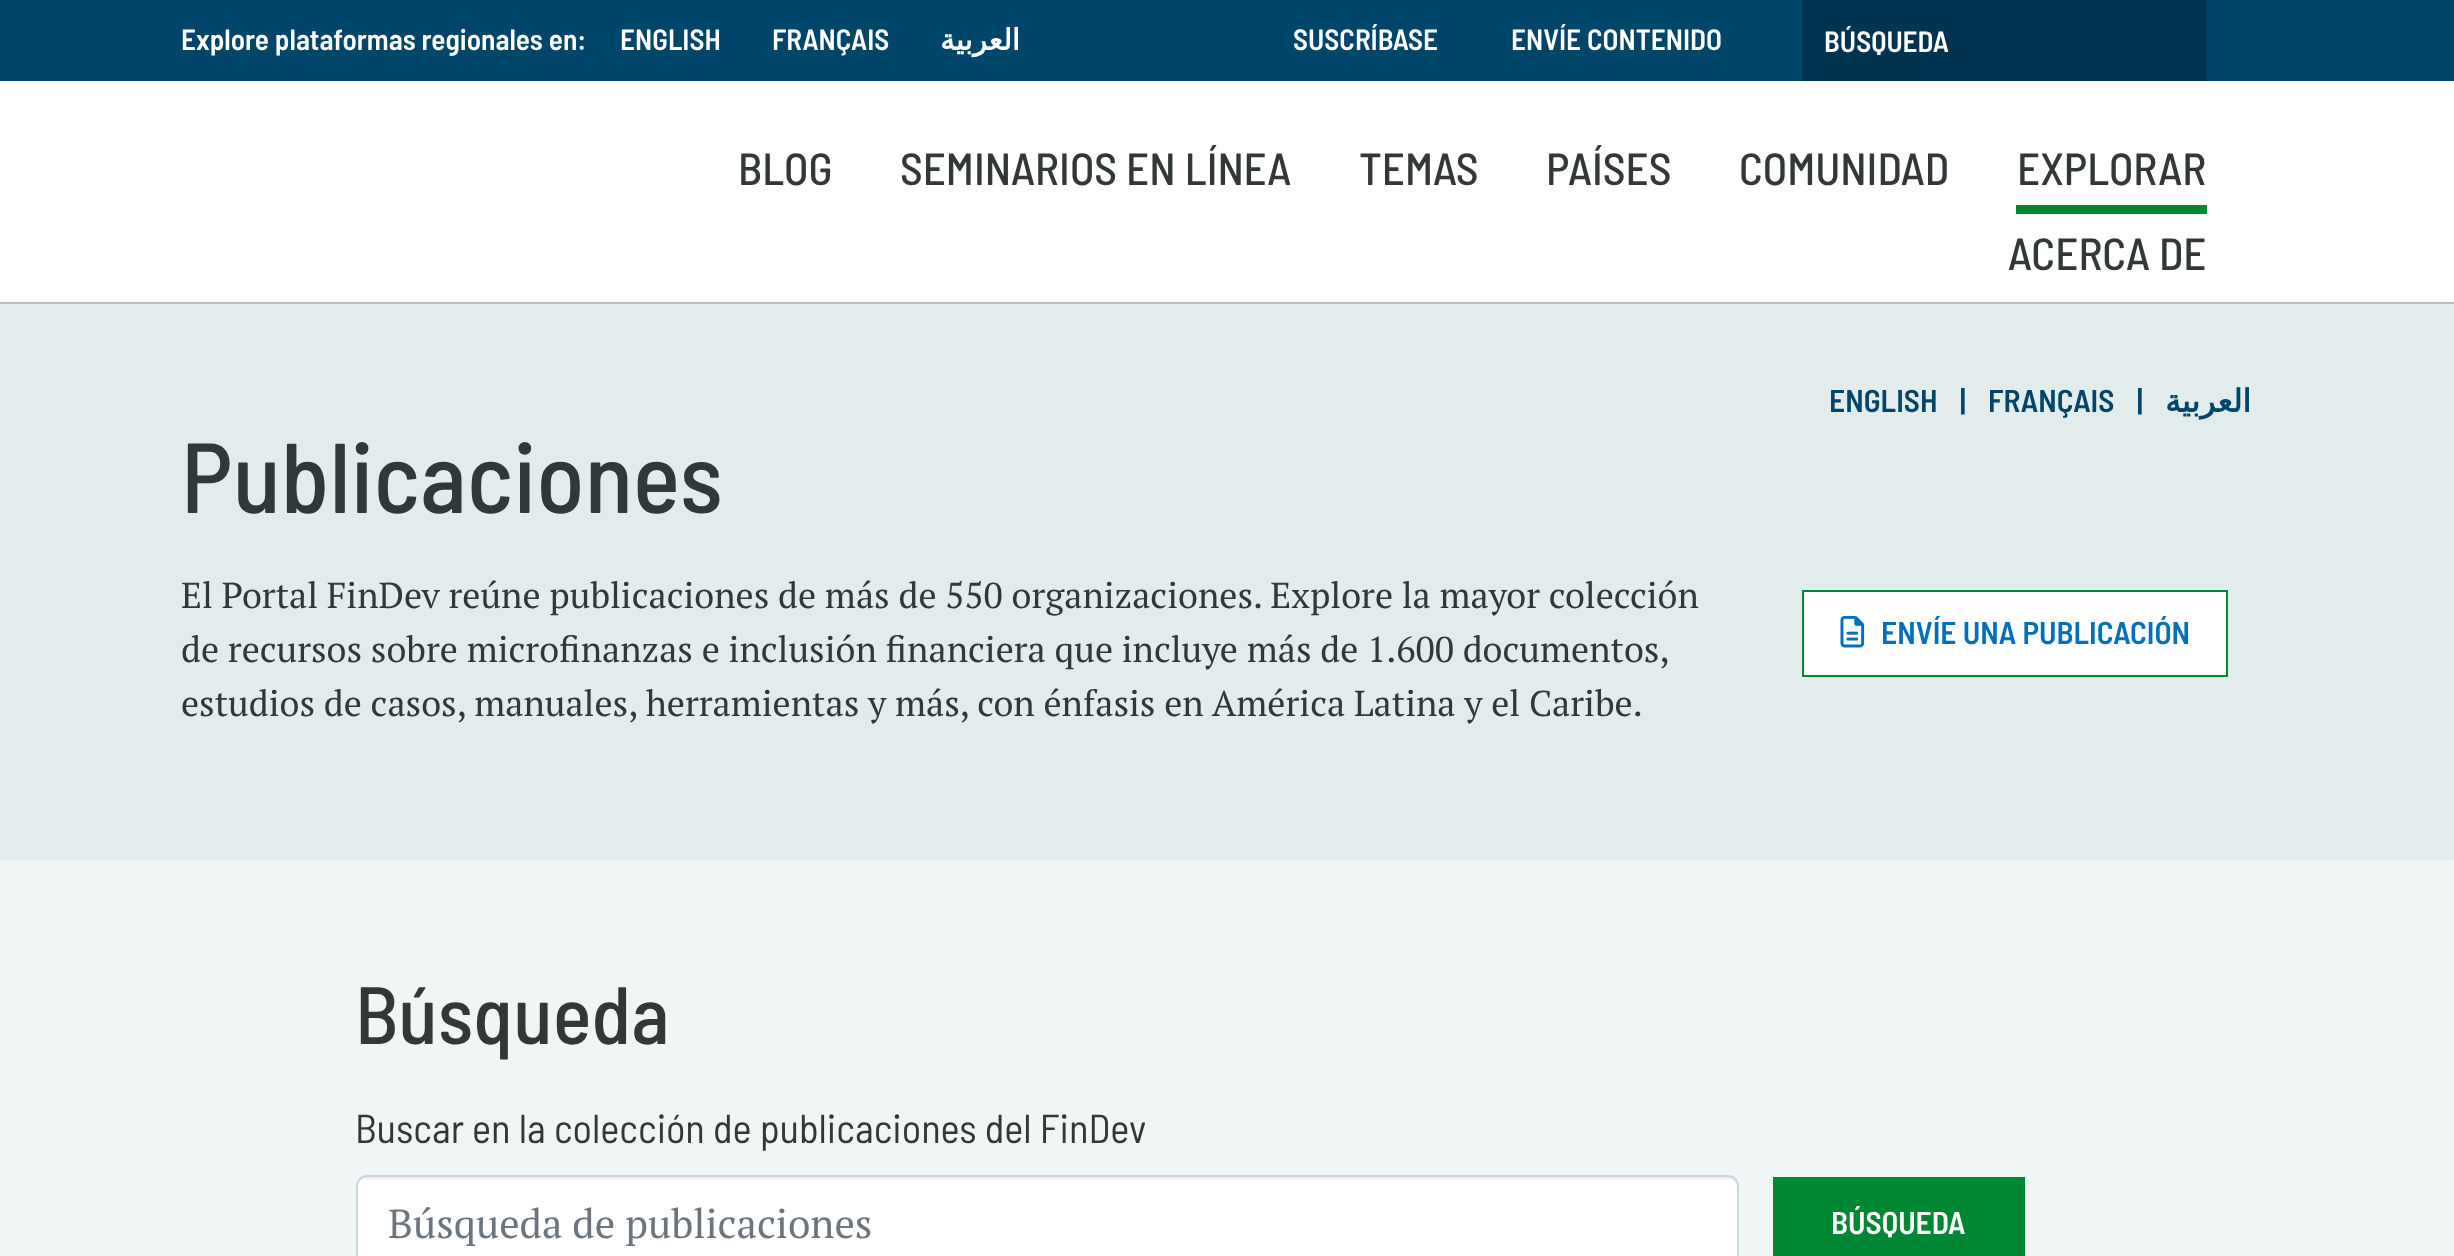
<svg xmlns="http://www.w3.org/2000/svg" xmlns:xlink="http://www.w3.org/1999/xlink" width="2454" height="1256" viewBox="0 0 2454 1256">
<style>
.cls-1{font:600 29.25px Barlow Semi Condensed;fill:#ffffff}
.cls-2{font:bold 29.25px DejaVu Sans;direction:rtl;fill:#ffffff}
.cls-3{font:500 45px Barlow Semi Condensed;fill:#323737}
.cls-4{font:600 31.5px Barlow Semi Condensed;fill:#00456a}
.cls-5{font:bold 31.5px DejaVu Sans;direction:rtl;fill:#00456a}
.cls-6{font:500 99px Barlow Semi Condensed;fill:#323737}
.cls-7{font:36px PT Serif;fill:#323737}
.cls-8{font:600 31.5px Barlow Semi Condensed;fill:#0170ba}
.cls-9{font:500 81px Barlow Semi Condensed;fill:#323737}
.cls-10{font:40.5px Barlow Semi Condensed;fill:#323737}
.cls-11{font:40.5px PT Serif;fill:#6c757d}
.cls-12{font:600 31.5px Barlow Semi Condensed;fill:#ffffff}
</style>
<rect width="100%" height="100%" fill="#ffffff"/>
<rect fill="#b2c0c0" x="0" y="302" width="2454" height="2"/>
<rect fill="#00456a" x="0" y="0" width="2454" height="81"/>
<rect fill="#00334f" x="1802" y="0" width="405" height="81"/>
<rect fill="#008734" x="2016" y="205" width="191" height="9"/>
<rect fill="#e2ecec" x="0" y="304" width="2454" height="556"/>
<rect fill="#ffffff" stroke="#008734" stroke-width="2" x="1803" y="591" width="424" height="85"/>
<image xlink:href="image0.png" x="1840" y="615" width="25" height="33"/>
<rect fill="#f0f6f6" x="0" y="860" width="2454" height="396"/>
<rect fill="#ffffff" x="358" y="1177" width="1379" height="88" rx="9"/>
<path fill="#000000" fill-opacity="0.07" d="M366 1179H1729C1733 1179 1737 1183 1737 1187C1737 1182 1734 1177 1728 1177H367C361 1177 358 1182 358 1187C358 1183 361 1179 366 1179Z"/>
<rect fill="none" stroke="#ced4da" stroke-width="2" x="357" y="1176" width="1381" height="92" rx="10"/>
<rect fill="#008734" x="1773" y="1177" width="252" height="79"/>
<text class="cls-1" x="181" y="50">Explore plataformas regionales en:</text>
<text class="cls-1" x="620" y="50">ENGLISH</text>
<text class="cls-1" x="772" y="50">FRANÇAIS</text>
<text class="cls-2" x="1020" y="50">العربية</text>
<text class="cls-1" x="1293" y="50">SUSCRÍBASE</text>
<text class="cls-1" x="1511" y="50">ENVÍE CONTENIDO</text>
<text class="cls-1" x="1824" y="52">BÚSQUEDA</text>
<text class="cls-3" x="738" y="185">BLOG</text>
<text class="cls-3" x="900" y="185">SEMINARIOS EN LÍNEA</text>
<text class="cls-3" x="1359" y="185">TEMAS</text>
<text class="cls-3" x="1546" y="185">PAÍSES</text>
<text class="cls-3" x="1739" y="185">COMUNIDAD</text>
<text class="cls-3" x="2017" y="185">EXPLORAR</text>
<text class="cls-3" x="2008" y="270">ACERCA DE</text>
<text class="cls-4" x="1829" y="412">ENGLISH</text>
<text class="cls-4" x="1960" y="412">|</text>
<text class="cls-4" x="1988" y="412">FRANÇAIS</text>
<text class="cls-4" x="2137" y="412">|</text>
<text class="cls-5" x="2251" y="412">العربية</text>
<text class="cls-6" x="181" y="513">Publicaciones</text>
<text class="cls-7"><tspan x="181" y="608">El Portal FinDev reúne publicaciones de más de 550 organizaciones. Explore la mayor colección</tspan><tspan x="181" y="662">de recursos sobre microfinanzas e inclusión financiera que incluye más de 1.600 documentos,</tspan><tspan x="181" y="716">estudios de casos, manuales, herramientas y más, con énfasis en América Latina y el Caribe.</tspan></text>
<text class="cls-8" x="1881" y="644">ENVÍE UNA PUBLICACIÓN</text>
<text class="cls-9" x="355" y="1044">Búsqueda</text>
<text class="cls-10" x="355" y="1143">Buscar en la colección de publicaciones del FinDev</text>
<text class="cls-11" x="388" y="1238">Búsqueda de publicaciones</text>
<text class="cls-12" x="1831" y="1234">BÚSQUEDA</text>
</svg>
